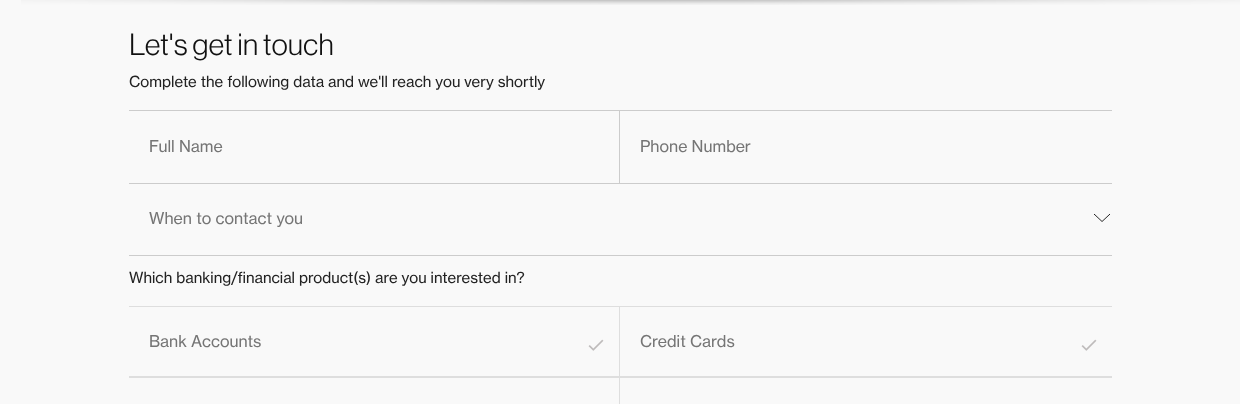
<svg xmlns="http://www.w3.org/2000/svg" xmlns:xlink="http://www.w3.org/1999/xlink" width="1240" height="404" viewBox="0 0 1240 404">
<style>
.cls-1{font:300 30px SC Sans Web;fill:#111111}
.cls-2{font:15px SC Sans Web;fill:#222222}
.cls-3{font:16px SC Sans Web;fill:#757575}
</style>
<rect width="100%" height="100%" fill="#f9f9f9"/>
<image xlink:href="image0.png" x="21" y="0" width="1219" height="5"/>
<rect fill="#cccccc" x="129" y="110" width="983" height="1"/>
<rect fill="#cccccc" x="619" y="110" width="1" height="73"/>
<rect fill="#cccccc" x="129" y="183" width="983" height="1"/>
<rect fill="#cccccc" x="129" y="255" width="983" height="1"/>
<image xlink:href="image1.png" x="1094" y="214" width="16" height="8"/>
<rect fill="#dedede" x="619" y="306" width="1" height="98"/>
<rect fill="#dedede" x="129" y="306" width="490" height="1"/>
<rect fill="#dedede" x="129" y="376" width="490" height="2"/>
<image xlink:href="image2.png" x="588" y="339" width="16" height="12"/>
<rect fill="#dedede" x="620" y="306" width="492" height="1"/>
<rect fill="#dedede" x="620" y="376" width="492" height="2"/>
<image xlink:href="image2.png" x="1081" y="339" width="16" height="12"/>
<text class="cls-1" x="129" y="55">Let's get in touch</text>
<text class="cls-2" x="129" y="87">Complete the following data and we'll reach you very shortly</text>
<text class="cls-3" x="149" y="152">Full Name</text>
<text class="cls-3" x="640" y="152">Phone Number</text>
<text class="cls-3" x="149" y="224">When to contact you</text>
<text class="cls-2" x="129" y="283">Which banking/financial product(s) are you interested in?</text>
<text class="cls-3" x="149" y="347">Bank Accounts</text>
<text class="cls-3" x="640" y="347">Credit Cards</text>
</svg>
